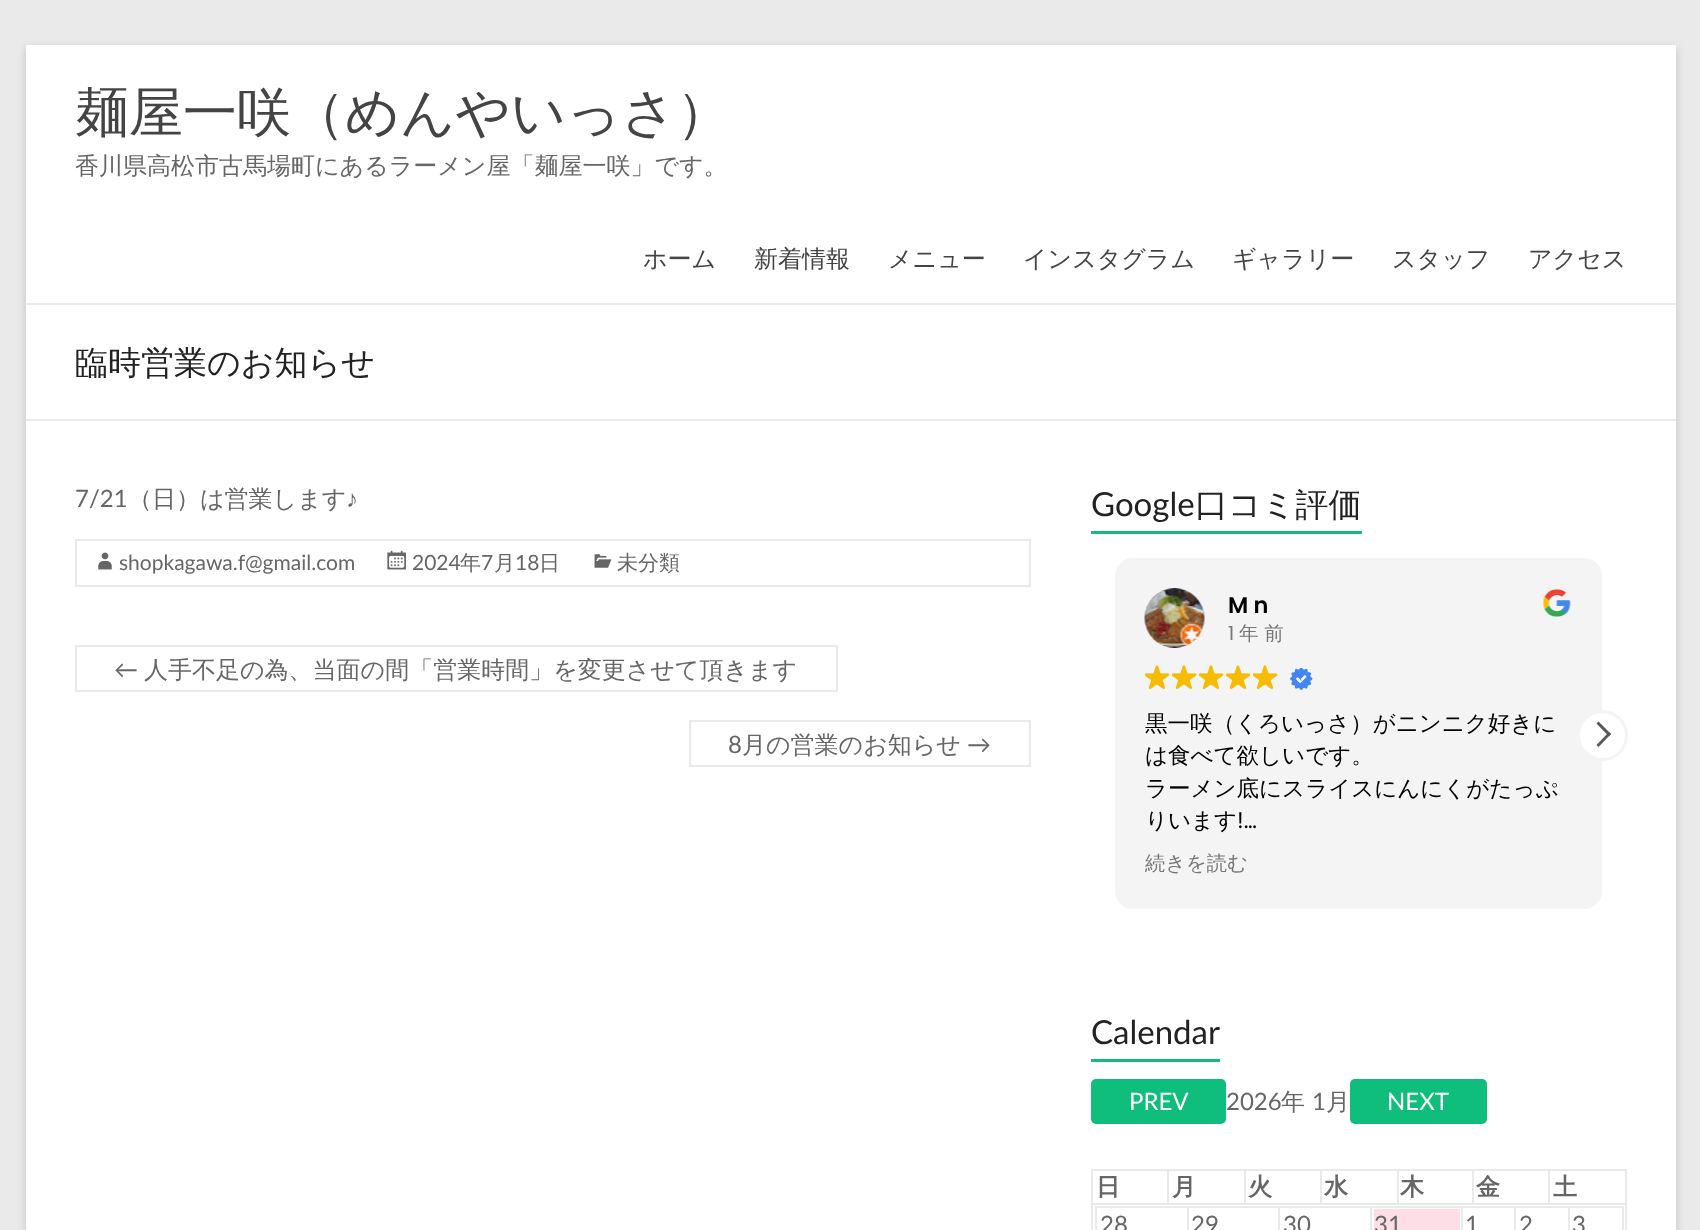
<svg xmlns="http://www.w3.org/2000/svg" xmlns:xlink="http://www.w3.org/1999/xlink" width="1700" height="1230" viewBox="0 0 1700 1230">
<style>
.cls-1{font:500 54px WenQuanYi Zen Hei;fill:#444444}
.cls-2{font:500 24px WenQuanYi Zen Hei;fill:#666666}
.cls-3{font:500 24px WenQuanYi Zen Hei;fill:#444444}
.cls-4{font:500 33px WenQuanYi Zen Hei;fill:#222222}
.cls-5{font:24px Lato;fill:#666666}
.cls-6{font:24px Liberation Sans;fill:#666666}
.cls-7{font:21px Lato;fill:#666666}
.cls-8{font:500 21px WenQuanYi Zen Hei;fill:#666666}
.cls-9{font:33px Lato;fill:#222222}
.cls-10{font:600 22.5px Poppins;fill:#000000}
.cls-11{font:19.5px Poppins;fill:#767676}
.cls-12{font:500 19.5px WenQuanYi Zen Hei;fill:#767676}
.cls-13{font:500 22.5px WenQuanYi Zen Hei;fill:#000000}
.cls-14{font:22.5px Poppins;fill:#000000}
.cls-15{font:500 20.25px WenQuanYi Zen Hei;fill:#767676}
.cls-16{font:24px Lato;fill:#ffffff}
.cls-17{font:bold 24px WenQuanYi Zen Hei;fill:#666666}
</style>
<rect width="100%" height="100%" fill="#eaeaea"/>
<rect fill="#646464" fill-opacity="0.3" filter="blur(4.5px)" x="26" y="48" width="1650" height="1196"/>
<rect fill="#ffffff" x="26" y="45" width="1650" height="1185"/>
<rect fill="#eaeaea" x="26" y="303" width="1650" height="2"/>
<rect fill="#eaeaea" x="26" y="419" width="1650" height="2"/>
<rect fill="none" stroke="#eaeaea" stroke-width="2" x="76" y="540" width="954" height="46"/>
<image xlink:href="image0.png" x="98" y="552" width="14" height="18"/>
<image xlink:href="image1.png" x="387" y="550" width="19" height="20"/>
<image xlink:href="image2.png" x="594" y="554" width="18" height="14"/>
<rect fill="#eaeaea" x="75" y="690" width="63" height="2"/>
<rect fill="#eaeaea" x="75" y="645" width="762" height="2"/>
<rect fill="#eaeaea" x="75" y="645" width="2" height="47"/>
<rect fill="#eaeaea" x="836" y="645" width="2" height="47"/>
<rect fill="#eaeaea" x="138" y="690" width="699" height="2"/>
<rect fill="#eaeaea" x="689" y="720" width="342" height="2"/>
<rect fill="#eaeaea" x="689" y="765" width="279" height="2"/>
<rect fill="#eaeaea" x="689" y="720" width="2" height="47"/>
<rect fill="#eaeaea" x="1029" y="720" width="2" height="47"/>
<rect fill="#eaeaea" x="968" y="765" width="63" height="2"/>
<rect fill="#0fbe7c" x="1091" y="531" width="271" height="3"/>
<rect fill="#f4f4f4" x="1115" y="558" width="487" height="351" rx="18"/>
<image xlink:href="image3.png" x="1144" y="588" width="61" height="60"/>
<image xlink:href="image4.png" x="1542" y="589" width="29" height="28"/>
<image xlink:href="image5.png" x="1145" y="665" width="25" height="24"/>
<image xlink:href="image5.png" x="1172" y="665" width="25" height="24"/>
<image xlink:href="image5.png" x="1199" y="665" width="25" height="24"/>
<image xlink:href="image5.png" x="1226" y="665" width="25" height="24"/>
<image xlink:href="image5.png" x="1253" y="665" width="25" height="24"/>
<image xlink:href="image6.png" x="1290" y="668" width="23" height="22"/>
<circle fill="#ffffff" stroke="#f4f4f4" stroke-width="3" cx="1602.5" cy="735.5" r="24"/>
<path fill="#575757" d="M1609 736.5L1596.5 723.5L1598.5 721.5L1611 734Z"/>
<path fill="#575757" d="M1598.5 747L1596.5 745L1609 732L1611 734Z"/>
<rect fill="#0fbe7c" x="1091" y="1059" width="129" height="3"/>
<rect fill="#0fbe7c" x="1091" y="1079" width="135" height="45" rx="5"/>
<rect fill="#0fbe7c" x="1350" y="1079" width="137" height="45" rx="5"/>
<rect fill="#eaeaea" x="1548" y="1169" width="78" height="2"/>
<rect fill="#eaeaea" x="1091" y="1203" width="535" height="2"/>
<rect fill="#eaeaea" x="1548" y="1169" width="2" height="36"/>
<rect fill="#eaeaea" x="1472" y="1169" width="78" height="2"/>
<rect fill="#eaeaea" x="1472" y="1169" width="2" height="36"/>
<rect fill="#eaeaea" x="1397" y="1169" width="76" height="2"/>
<rect fill="#eaeaea" x="1397" y="1169" width="2" height="36"/>
<rect fill="#eaeaea" x="1320" y="1169" width="78" height="2"/>
<rect fill="#eaeaea" x="1320" y="1169" width="2" height="36"/>
<rect fill="#eaeaea" x="1244" y="1169" width="78" height="2"/>
<rect fill="#eaeaea" x="1244" y="1169" width="2" height="36"/>
<rect fill="#eaeaea" x="1167" y="1169" width="78" height="2"/>
<rect fill="#eaeaea" x="1167" y="1169" width="2" height="36"/>
<rect fill="#eaeaea" x="1091" y="1169" width="78" height="2"/>
<rect fill="#eaeaea" x="1091" y="1203" width="2" height="27"/>
<rect fill="#eaeaea" x="1091" y="1169" width="2" height="36"/>
<rect fill="#eaeaea" x="1625" y="1203" width="2" height="27"/>
<rect fill="#eaeaea" x="1625" y="1169" width="2" height="36"/>
<rect fill="#eaeaea" x="1568" y="1206" width="55" height="2"/>
<rect fill="#eaeaea" x="1568" y="1206" width="2" height="24"/>
<rect fill="#eaeaea" x="1514" y="1206" width="55" height="2"/>
<rect fill="#eaeaea" x="1514" y="1206" width="2" height="24"/>
<rect fill="#eaeaea" x="1461" y="1206" width="54" height="2"/>
<rect fill="#eaeaea" x="1461" y="1206" width="2" height="24"/>
<rect fill="#eaeaea" x="1370" y="1206" width="93" height="2"/>
<rect fill="#eaeaea" x="1370" y="1206" width="2" height="24"/>
<rect fill="#eaeaea" x="1278" y="1206" width="93" height="2"/>
<rect fill="#eaeaea" x="1278" y="1206" width="2" height="24"/>
<rect fill="#eaeaea" x="1187" y="1206" width="93" height="2"/>
<rect fill="#eaeaea" x="1187" y="1206" width="2" height="24"/>
<rect fill="#eaeaea" x="1095" y="1206" width="93" height="2"/>
<rect fill="#eaeaea" x="1095" y="1206" width="2" height="24"/>
<rect fill="#fddde6" x="1374" y="1209" width="86" height="21"/>
<rect fill="#eaeaea" x="1622" y="1206" width="2" height="24"/>
<text class="cls-1" x="75" y="131">麺屋一咲（めんやいっさ）</text>
<text class="cls-2" x="75" y="174">香川県高松市古馬場町にあるラーメン屋「麺屋一咲」です。</text>
<text class="cls-3" x="643" y="267">ホーム</text>
<text class="cls-3" x="754" y="267">新着情報</text>
<text class="cls-3" x="888" y="267">メニュー</text>
<text class="cls-3" x="1023" y="267">インスタグラム</text>
<text class="cls-3" x="1232" y="267">ギャラリー</text>
<text class="cls-3" x="1392" y="267">スタッフ</text>
<text class="cls-3" x="1528" y="267">アクセス</text>
<text class="cls-4" x="75" y="374">臨時営業のお知らせ</text>
<text class="cls-5" x="75" y="507">7/21</text>
<text class="cls-2" x="128" y="507">（日）は営業します</text>
<text class="cls-6" x="346" y="507">♪</text>
<text class="cls-7" x="119" y="570">shopkagawa.f@gmail.com</text>
<text class="cls-7" x="412" y="570">2024</text>
<text class="cls-8" x="460" y="570">年</text>
<text class="cls-7" x="481" y="570">7</text>
<text class="cls-8" x="494" y="570">月</text>
<text class="cls-7" x="515" y="570">18</text>
<text class="cls-8" x="539" y="570">日</text>
<text class="cls-8" x="617" y="570">未分類</text>
<text class="cls-5" x="114" y="678">←</text>
<text class="cls-2" x="144" y="678">人手不足の為、当面の間「営業時間」を変更させて頂きます</text>
<text class="cls-5" x="728" y="753">8</text>
<text class="cls-2" x="742" y="753">月の営業のお知らせ</text>
<text class="cls-5" x="967" y="753">→</text>
<text class="cls-9" x="1091" y="516">Google</text>
<text class="cls-4" x="1195" y="516">口コミ評価</text>
<text class="cls-10" x="1228" y="613">M n</text>
<text class="cls-11" x="1228" y="640">1</text>
<text class="cls-12" x="1239" y="640">年 前</text>
<text class="cls-13"><tspan x="1145" y="731">黒一咲（くろいっさ）がニンニク好きに</tspan><tspan x="1145" y="763">は食べて欲しいです。</tspan><tspan x="1145" y="796">ラーメン底にスライスにんにくがたっぷ</tspan><tspan x="1145" y="828">りいます</tspan></text>
<text class="cls-14" x="1237" y="828">!…</text>
<text class="cls-15" x="1145" y="870">続きを読む</text>
<text class="cls-9" x="1091" y="1044">Calendar</text>
<text class="cls-16" x="1129" y="1110">PREV</text>
<text class="cls-5" x="1226" y="1110">2026</text>
<text class="cls-2" x="1281" y="1110">年</text>
<text class="cls-5" x="1312" y="1110">1</text>
<text class="cls-2" x="1326" y="1110">月</text>
<text class="cls-16" x="1387" y="1110">NEXT</text>
<text class="cls-17" x="1096" y="1195">日</text>
<text class="cls-17" x="1172" y="1195">月</text>
<text class="cls-17" x="1248" y="1195">火</text>
<text class="cls-17" x="1324" y="1195">水</text>
<text class="cls-17" x="1400" y="1195">木</text>
<text class="cls-17" x="1476" y="1195">金</text>
<text class="cls-17" x="1553" y="1195">土</text>
<text class="cls-5" x="1100" y="1233">28</text>
<text class="cls-5" x="1191" y="1233">29</text>
<text class="cls-5" x="1283" y="1233">30</text>
<text class="cls-5" x="1374" y="1233">31</text>
<text class="cls-5" x="1465" y="1233">1</text>
<text class="cls-5" x="1519" y="1233">2</text>
<text class="cls-5" x="1572" y="1233">3</text>
</svg>
